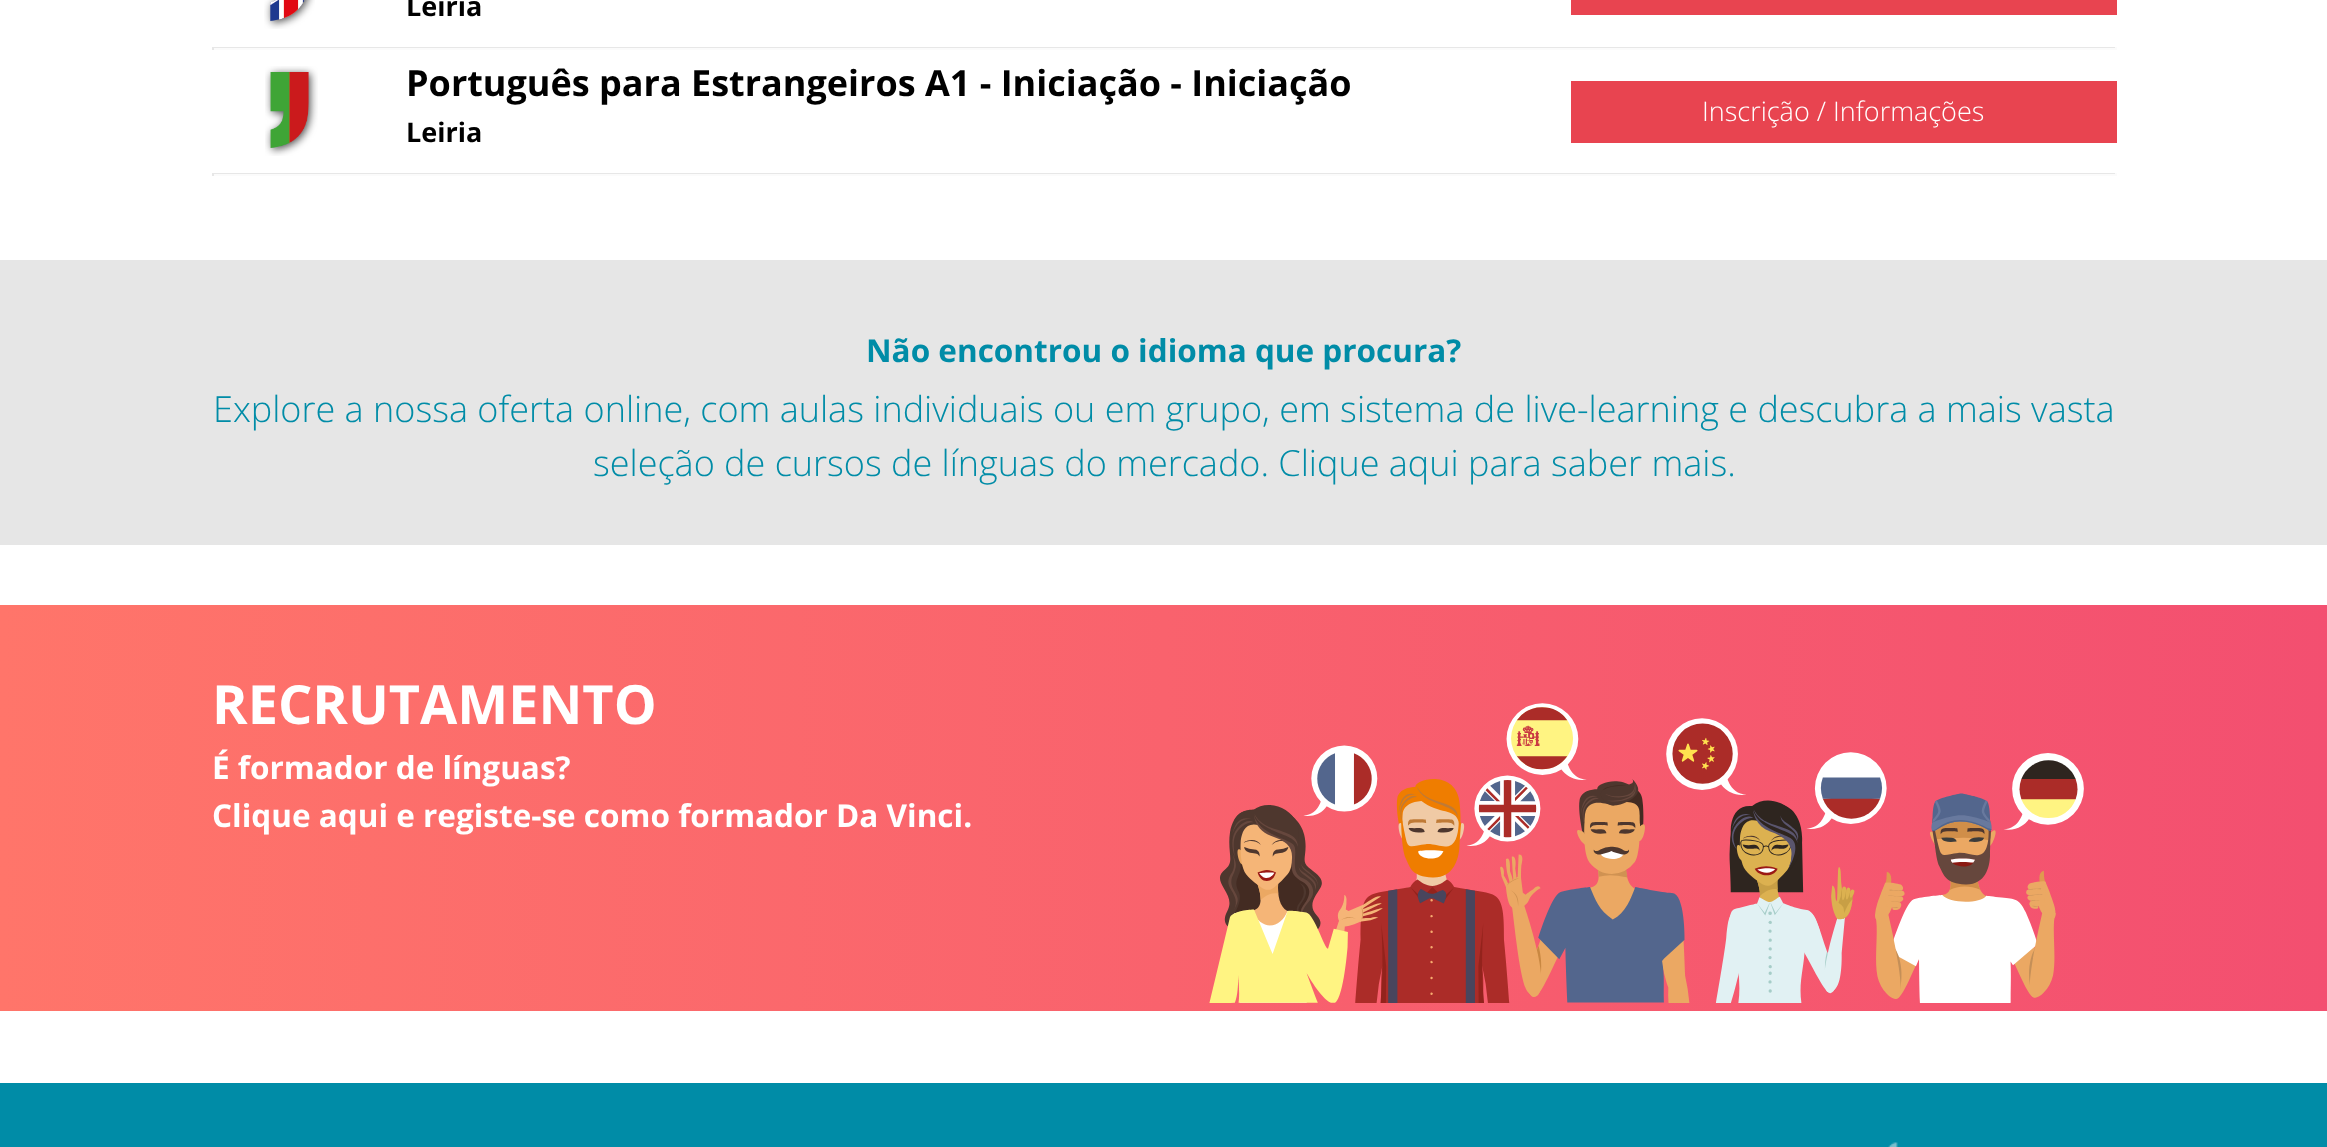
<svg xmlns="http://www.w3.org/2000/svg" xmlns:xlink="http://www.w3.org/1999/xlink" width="2327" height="1147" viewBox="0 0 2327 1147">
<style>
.cls-1{font:bold 27px Open Sans;fill:#000000}
.cls-2{font:bold 36px Open Sans;fill:#000000}
.cls-3{font:300 27px Open Sans;fill:#ffffff}
.cls-4{font:bold 31.5px Open Sans;fill:#008ca7}
.cls-5{font:300 36px Open Sans;fill:#008ca7}
.cls-6{font:bold 54px Open Sans;fill:#ffffff}
.cls-7{font:bold 31.5px Open Sans;fill:#ffffff}
</style>
<defs>
<linearGradient id="g1" gradientUnits="userSpaceOnUse" x1="0" y1="808" x2="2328" y2="808"><stop offset="0" stop-color="#ff756a"/><stop offset="1" stop-color="#f34f70"/></linearGradient>
</defs>
<rect width="100%" height="100%" fill="#ffffff"/>
<image xlink:href="image0.png" x="264" y="0" width="51" height="29"/>
<rect fill="#e84450" x="1571" y="0" width="546" height="15"/>
<rect fill="#e7e7e7" x="212" y="47" width="1905" height="1"/>
<rect fill="#fbfbfb" x="2115" y="47" width="2" height="3"/>
<rect fill="#fbfbfb" x="212" y="48" width="1905" height="2"/>
<rect fill="#e7e7e7" x="212" y="47" width="2" height="3"/>
<image xlink:href="image1.png" x="265" y="66" width="53" height="90"/>
<rect fill="#e84450" x="1571" y="81" width="546" height="62"/>
<rect fill="#e7e7e7" x="212" y="173" width="1905" height="1"/>
<rect fill="#fbfbfb" x="2115" y="173" width="2" height="3"/>
<rect fill="#fbfbfb" x="212" y="174" width="1905" height="2"/>
<rect fill="#e7e7e7" x="212" y="173" width="2" height="3"/>
<rect fill="#e6e6e6" x="0" y="260" width="2327" height="285"/>
<rect fill="url(#g1)" x="0" y="605" width="2327" height="406"/>
<image xlink:href="image2.png" x="1209" y="703" width="875" height="300"/>
<rect fill="#008ca7" x="0" y="1083" width="2327" height="64"/>
<image xlink:href="image3.png" x="1888" y="1142" width="10" height="5"/>
<text class="cls-1" x="406" y="16">Leiria</text>
<text class="cls-2" x="406" y="96">Português para Estrangeiros A1 - Iniciação - Iniciação</text>
<text class="cls-1" x="406" y="142">Leiria</text>
<text class="cls-3" x="1702" y="121">Inscrição / Informações</text>
<text class="cls-4" x="866" y="362">Não encontrou o idioma que procura?</text>
<text class="cls-5" x="213" y="422">Explore a nossa oferta online, com aulas individuais ou em grupo, em sistema de live-learning e descubra a mais vasta</text>
<text class="cls-5" x="593" y="476">seleção de cursos de línguas do mercado. Clique aqui para saber mais.</text>
<text class="cls-6" x="212" y="724">RECRUTAMENTO</text>
<text class="cls-7"><tspan x="212" y="779">É formador de línguas?</tspan><tspan x="212" y="827">Clique aqui e registe-se como formador Da Vinci.</tspan></text>
</svg>
